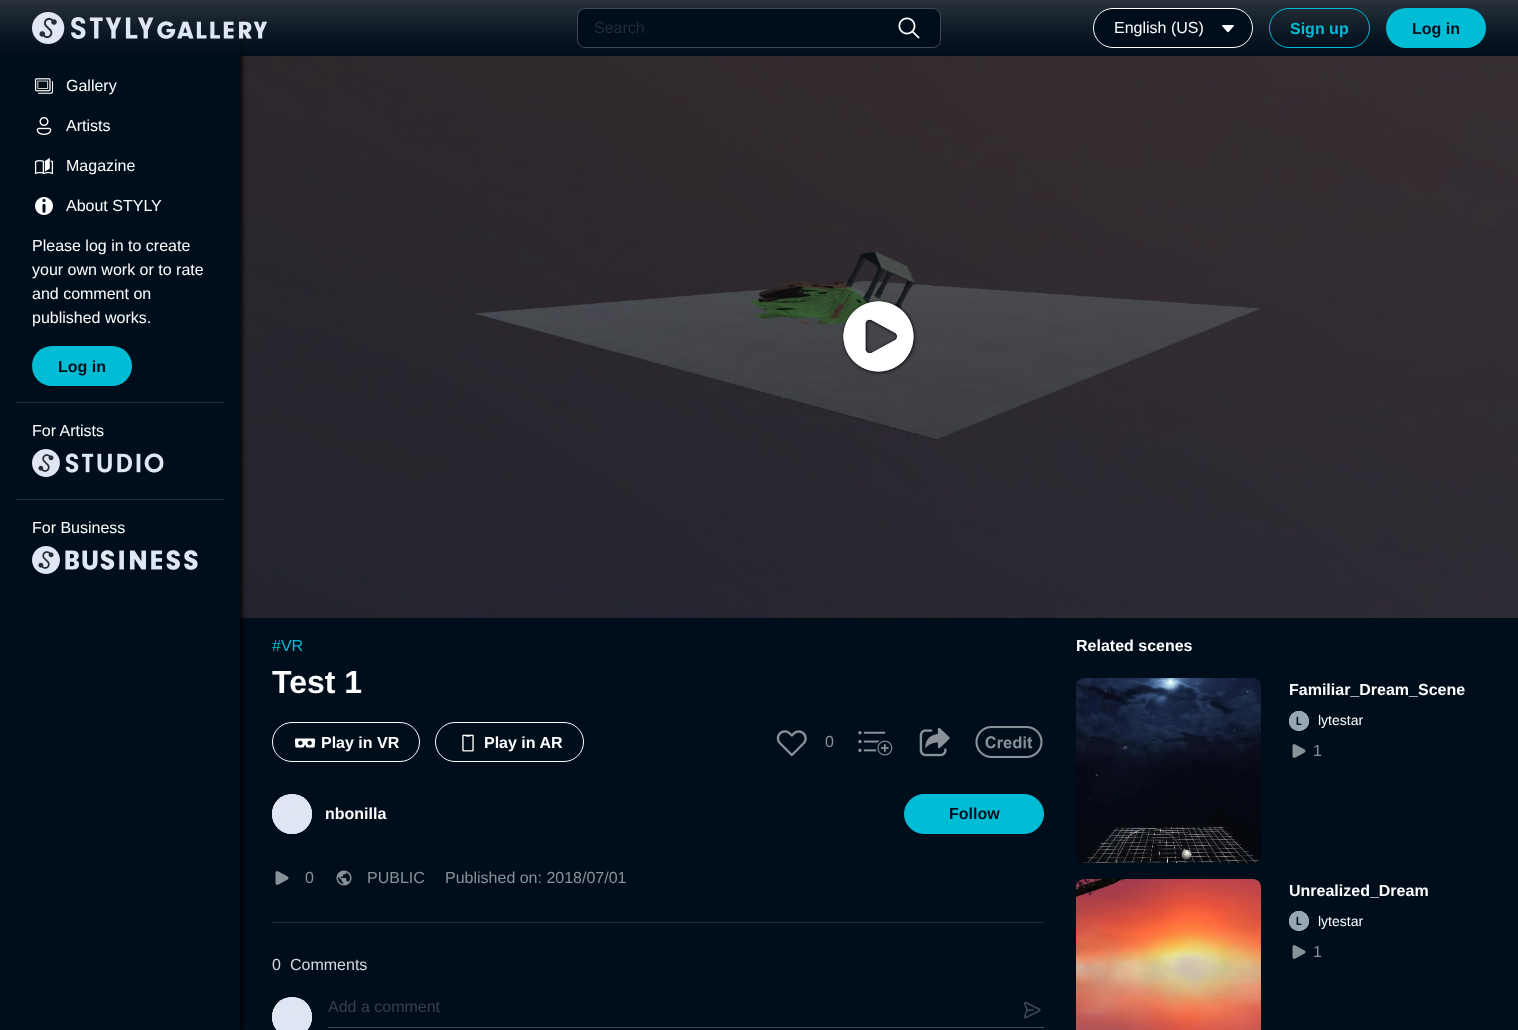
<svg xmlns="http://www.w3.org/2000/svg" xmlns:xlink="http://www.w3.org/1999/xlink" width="1518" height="1030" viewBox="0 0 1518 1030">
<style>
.cls-1{font:16px Liberation Sans;fill:#212d3a}
.cls-2{font:16px Liberation Sans;fill:#fcfeff}
.cls-3{font:bold 16px Liberation Sans;fill:#00bcd4}
.cls-4{font:bold 16px Liberation Sans;fill:#000d1a}
.cls-5{font:16px Liberation Sans;fill:#00bcd4}
.cls-6{font:bold 32px Liberation Sans;fill:#fcfeff}
.cls-7{font:bold 16px Liberation Sans;fill:#fcfeff}
.cls-8{font:16px Liberation Sans;fill:#899199}
.cls-9{font:16px Liberation Sans;fill:#d6dadd}
.cls-10{font:16px Liberation Sans;fill:#35414c}
.cls-11{font:14px Liberation Sans;fill:#fcfeff}
</style>
<defs>
<clipPath id="clip1"><rect x="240" y="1" width="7" height="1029"/></clipPath>
<linearGradient id="g1" gradientUnits="userSpaceOnUse" x1="759" y1="0" x2="759" y2="56"><stop offset="0" stop-color="#2b343d"/><stop offset="1" stop-color="#000d1a" stop-opacity="0.5"/></linearGradient>
<clipPath id="clip2"><rect x="578" y="9" width="362" height="38" rx="7"/></clipPath>
<linearGradient id="g2" gradientUnits="userSpaceOnUse" x1="1169" y1="863" x2="1169" y2="678"><stop offset="0" stop-color="#0f1c29"/><stop offset="1" stop-color="#000d1a"/></linearGradient>
</defs>
<rect width="100%" height="100%" fill="#000d1a"/>
<image xlink:href="image9.png" x="240" y="56" width="1278" height="562"/>
<g clip-path="url(#clip1)">
<rect fill="#000000" filter="blur(2.5px)" x="2" y="0" width="240" height="1030"/>
</g>
<rect fill="url(#g1)" x="0" y="0" width="1518" height="56"/>
<image xlink:href="image0.png" x="32" y="12" width="235" height="32"/>
<rect fill="none" stroke="#3d4955" x="577.5" y="8.5" width="363" height="39" rx="7.5"/>
<g clip-path="url(#clip2)">
<path fill="#000d1a" d="M586 9H878V47H586C581.5 47 578 43.5 578 39V17C578 12.5 581.5 9 586 9Z"/>
<path fill="#000d1a" d="M878 9H932C936.5 9 940 12.5 940 17V39C940 43.5 936.5 47 932 47H878Z"/>
</g>
<image xlink:href="image1.png" x="898" y="17" width="22" height="22"/>
<rect fill="#000d1a" stroke="#fcfeff" x="1093.5" y="8.5" width="159" height="39" rx="19.5"/>
<image xlink:href="image2.png" x="1222" y="25" width="12" height="8"/>
<rect fill="none" stroke="#00bcd4" x="1269.5" y="8.5" width="100" height="39" rx="19.5"/>
<rect fill="#00bcd4" x="1386" y="8" width="100" height="40" rx="20"/>
<image xlink:href="image3.png" x="34" y="78" width="20" height="16"/>
<image xlink:href="image4.png" x="36" y="117" width="16" height="18"/>
<image xlink:href="image5.png" x="34" y="158" width="20" height="17"/>
<image xlink:href="image6.png" x="35" y="197" width="18" height="18"/>
<rect fill="#00bcd4" x="32" y="346" width="100" height="40" rx="20"/>
<rect fill="#1f2b38" x="16" y="402" width="208" height="1"/>
<image xlink:href="image7.png" x="32" y="449" width="132" height="28"/>
<rect fill="#1f2b38" x="16" y="499" width="208" height="1"/>
<image xlink:href="image8.png" x="32" y="546" width="166" height="28"/>
<rect fill="none" stroke="#fcfeff" x="272.5" y="722.5" width="147" height="39" rx="19.5"/>
<image xlink:href="image10.png" x="294" y="738" width="22" height="10"/>
<rect fill="none" stroke="#fcfeff" x="435.5" y="722.5" width="148" height="39" rx="19.5"/>
<image xlink:href="image11.png" x="462" y="734" width="12" height="18"/>
<image xlink:href="image12.png" x="776" y="730" width="31" height="27"/>
<image xlink:href="image13.png" x="858" y="731" width="35" height="25"/>
<image xlink:href="image14.png" x="919" y="727" width="31" height="30"/>
<image xlink:href="image15.png" x="975" y="726" width="68" height="32"/>
<circle fill="#ffffff" cx="292" cy="814" r="20"/>
<image xlink:href="image16.png" x="272" y="794" width="40" height="40"/>
<rect fill="#00bcd4" stroke="#00bcd4" x="904.5" y="794.5" width="139" height="39" rx="19.5"/>
<image xlink:href="image17.png" x="275" y="871" width="14" height="14"/>
<image xlink:href="image18.png" x="336" y="870" width="16" height="16"/>
<rect fill="#1f2b38" x="272" y="922" width="772" height="1"/>
<circle fill="#ffffff" cx="292" cy="1017" r="20"/>
<image xlink:href="image19.png" x="272" y="997" width="40" height="33"/>
<rect fill="#3d4955" x="328" y="1027" width="716" height="1"/>
<image xlink:href="image20.png" x="1023" y="1001" width="18" height="18"/>
<rect fill="url(#g2)" x="1076" y="678" width="185" height="185" rx="8"/>
<image xlink:href="image21.png" x="1076" y="678" width="185" height="185"/>
<circle fill="#ffffff" cx="1299" cy="721" r="10"/>
<image xlink:href="image22.png" x="1289" y="711" width="20" height="20"/>
<image xlink:href="image17.png" x="1292" y="744" width="14" height="14"/>
<image xlink:href="image23.png" x="1076" y="879" width="185" height="151"/>
<circle fill="#ffffff" cx="1299" cy="921" r="10"/>
<image xlink:href="image24.png" x="1289" y="911" width="20" height="20"/>
<image xlink:href="image17.png" x="1292" y="945" width="14" height="14"/>
<text class="cls-1" x="594" y="33">Search</text>
<text class="cls-2" x="1114" y="33">English (US)</text>
<text class="cls-3" x="1290" y="34">Sign up</text>
<text class="cls-4" x="1412" y="34">Log in</text>
<text class="cls-2" x="66" y="91">Gallery</text>
<text class="cls-2" x="66" y="131">Artists</text>
<text class="cls-2" x="66" y="171">Magazine</text>
<text class="cls-2" x="66" y="211">About STYLY</text>
<text class="cls-2"><tspan x="32" y="251">Please log in to create</tspan><tspan x="32" y="275">your own work or to rate</tspan><tspan x="32" y="299">and comment on</tspan><tspan x="32" y="323">published works.</tspan></text>
<text class="cls-4" x="58" y="372">Log in</text>
<text class="cls-2" x="32" y="436">For Artists</text>
<text class="cls-2" x="32" y="533">For Business</text>
<text class="cls-5" x="272" y="651">#VR</text>
<text class="cls-6" x="272" y="693">Test 1</text>
<text class="cls-7" x="321" y="748">Play in VR</text>
<text class="cls-7" x="484" y="748">Play in AR</text>
<text class="cls-8" x="825" y="747">0</text>
<text class="cls-7" x="325" y="819">nbonilla</text>
<text class="cls-4" x="949" y="819">Follow</text>
<text class="cls-8" x="305" y="883">0</text>
<text class="cls-8" x="367" y="883">PUBLIC</text>
<text class="cls-8" x="445" y="883">Published on: 2018/07/01</text>
<text class="cls-9" x="272" y="970">0</text>
<text class="cls-9" x="290" y="970">Comments</text>
<text class="cls-10" x="328" y="1012">Add a comment</text>
<text class="cls-7" x="1076" y="651">Related scenes</text>
<text class="cls-7" x="1289" y="695">Familiar_Dream_Scene</text>
<text class="cls-11" x="1318" y="725">lytestar</text>
<text class="cls-8" x="1313" y="756">1</text>
<text class="cls-7" x="1289" y="896">Unrealized_Dream</text>
<text class="cls-11" x="1318" y="926">lytestar</text>
<text class="cls-8" x="1313" y="957">1</text>
</svg>
